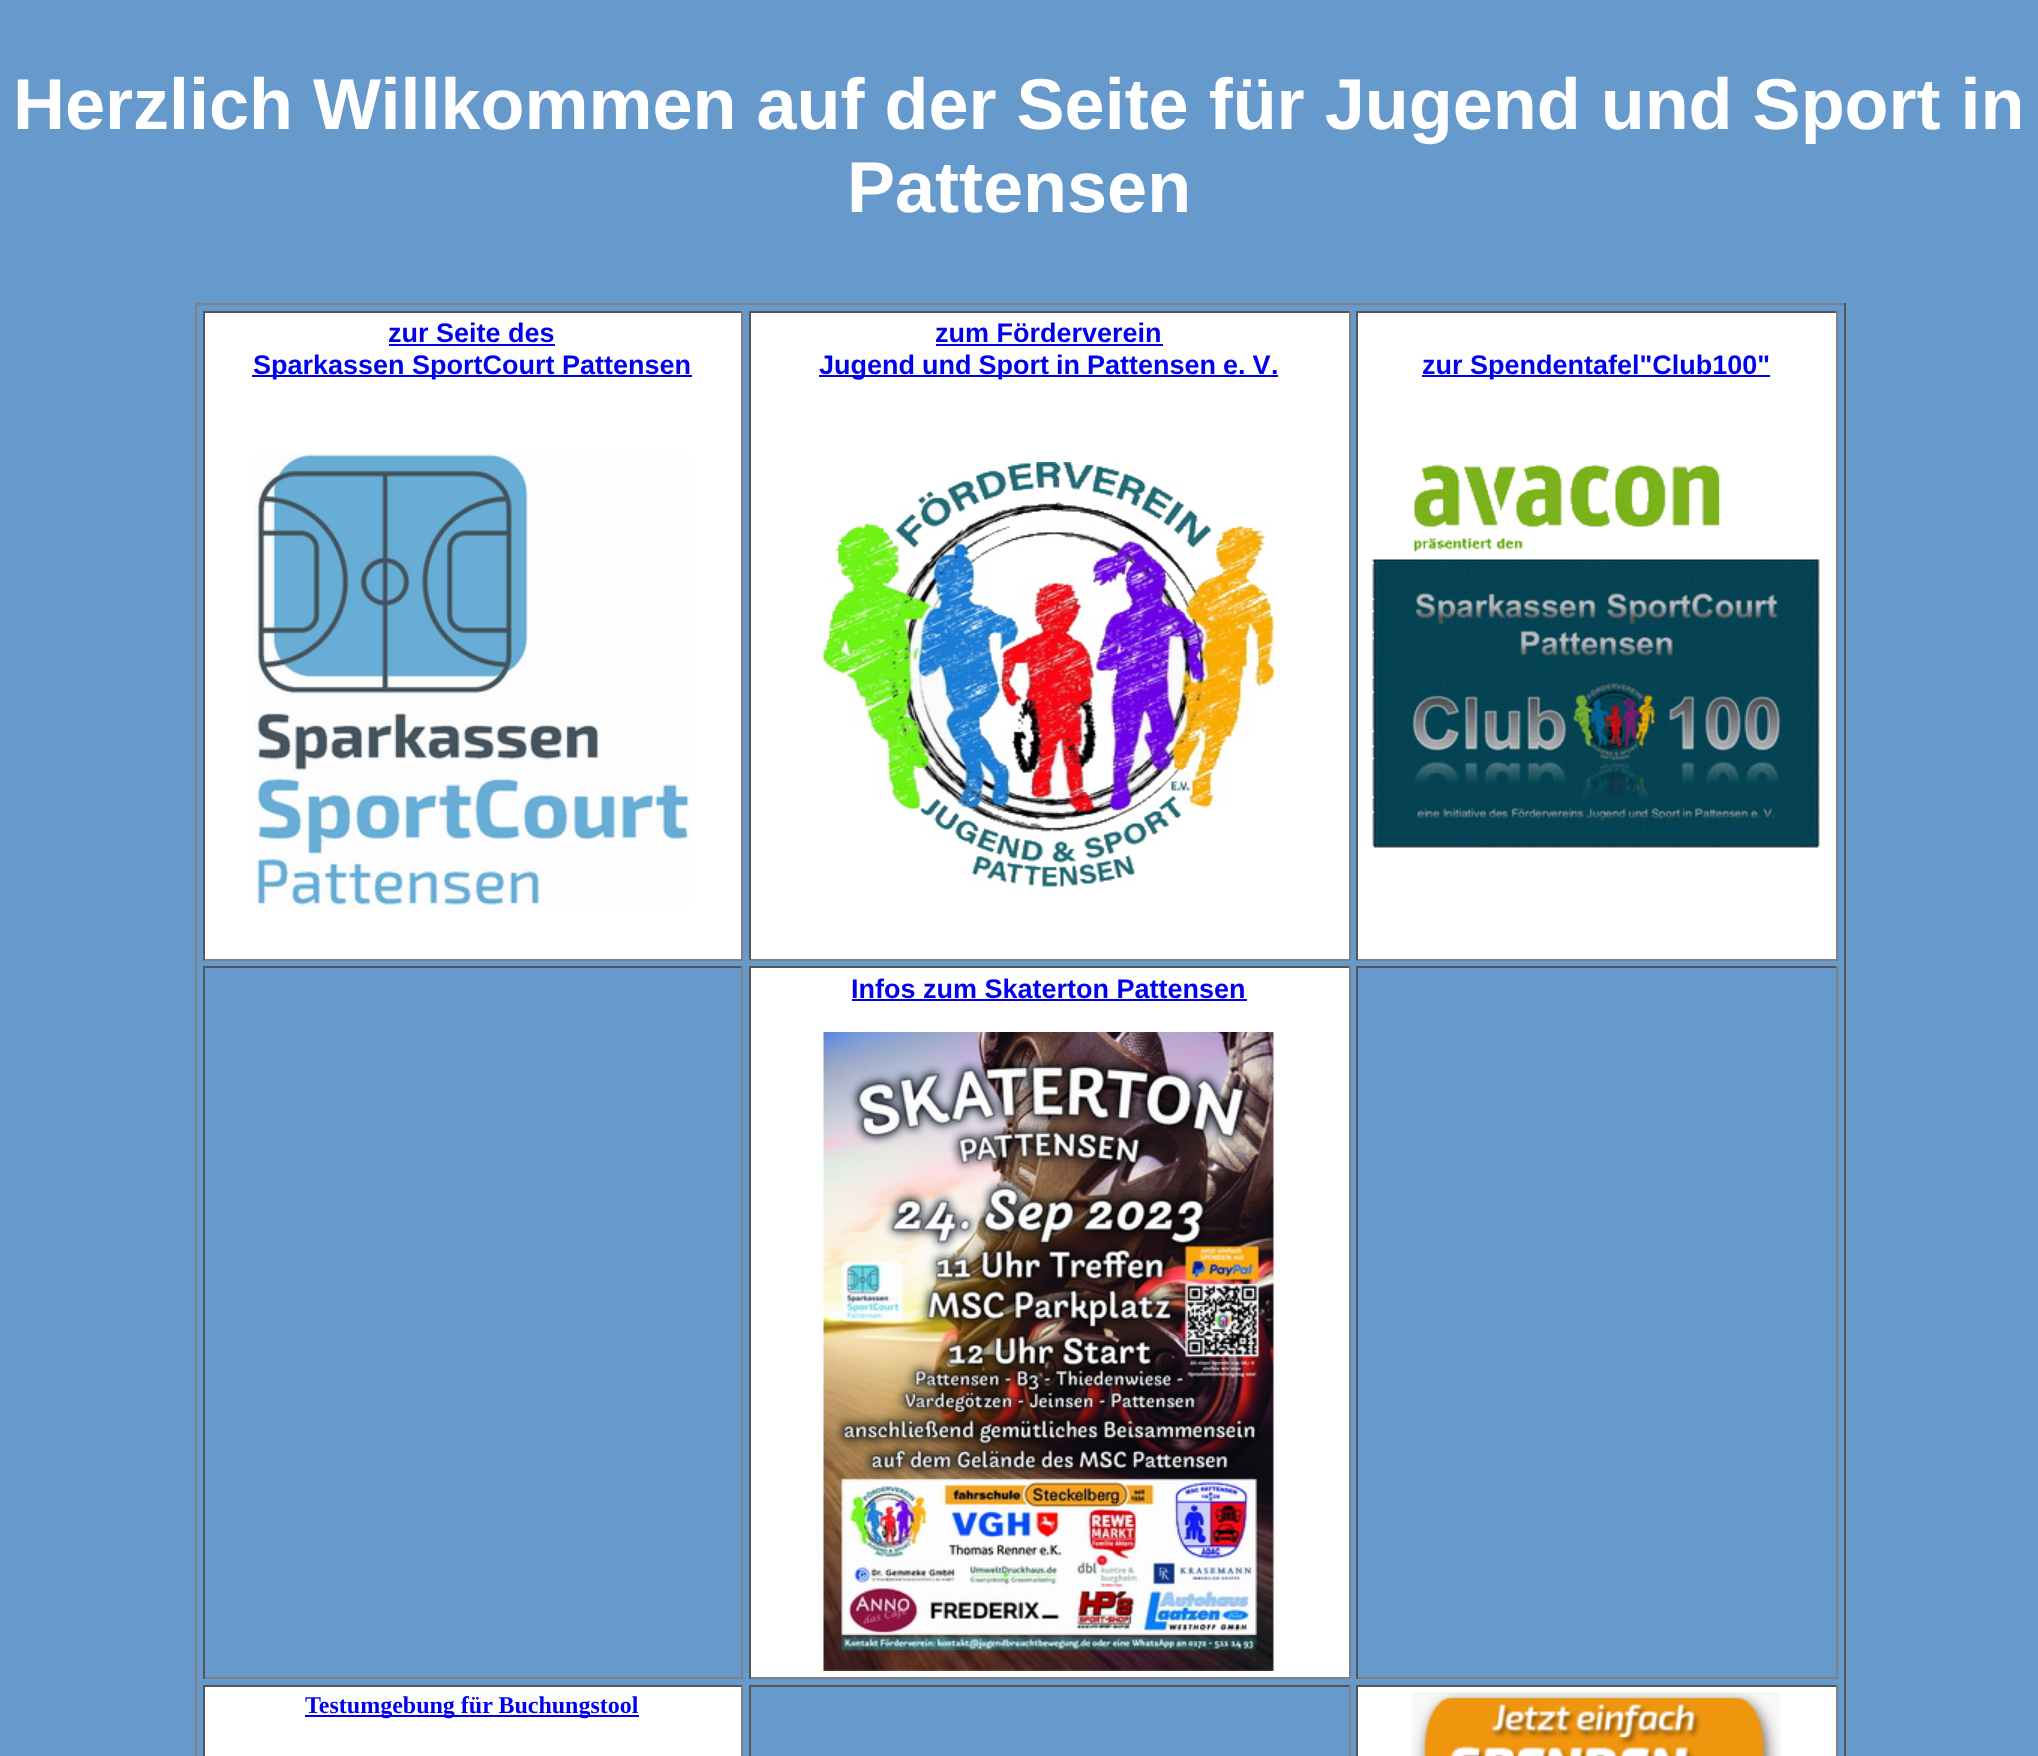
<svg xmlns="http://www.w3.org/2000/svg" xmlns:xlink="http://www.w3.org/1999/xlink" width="2038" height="1756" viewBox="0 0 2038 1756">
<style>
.cls-1{font:bold 72px Liberation Sans;fill:#ffffff}
.cls-2{font:bold 27px Liberation Sans;fill:#0000ee}
.cls-3{font:bold 24px Liberation Serif;fill:#0000ee}
</style>
<rect width="100%" height="100%" fill="#6699cc"/>
<rect fill="#808080" x="195" y="303" width="1650" height="2"/>
<rect fill="#555555" x="1844" y="303" width="2" height="1453"/>
<rect fill="#808080" x="195" y="303" width="2" height="1453"/>
<rect fill="#ffffff" x="205" y="313" width="536" height="646"/>
<rect fill="#555555" x="203" y="311" width="540" height="2"/>
<rect fill="#808080" x="741" y="311" width="2" height="649"/>
<rect fill="#808080" x="203" y="959" width="540" height="2"/>
<rect fill="#555555" x="203" y="311" width="2" height="649"/>
<rect fill="#0000ee" x="389" y="344" width="166" height="2"/>
<rect fill="#0000ee" x="252" y="375" width="440" height="2"/>
<image xlink:href="image0.png" x="255" y="453" width="435" height="454"/>
<rect fill="#ffffff" x="751" y="313" width="598" height="646"/>
<rect fill="#555555" x="749" y="311" width="601" height="2"/>
<rect fill="#808080" x="1349" y="311" width="2" height="649"/>
<rect fill="#808080" x="749" y="959" width="601" height="2"/>
<rect fill="#555555" x="749" y="311" width="2" height="649"/>
<rect fill="#0000ee" x="936" y="344" width="227" height="2"/>
<rect fill="#0000ee" x="819" y="375" width="459" height="2"/>
<image xlink:href="image1.png" x="823" y="462" width="451" height="425"/>
<rect fill="#ffffff" x="1358" y="313" width="478" height="646"/>
<rect fill="#555555" x="1356" y="311" width="482" height="2"/>
<rect fill="#808080" x="1836" y="311" width="2" height="649"/>
<rect fill="#808080" x="1356" y="959" width="482" height="2"/>
<rect fill="#555555" x="1356" y="311" width="2" height="649"/>
<rect fill="#0000ee" x="1422" y="375" width="348" height="2"/>
<image xlink:href="image2.png" x="1372" y="464" width="448" height="384"/>
<rect fill="#555555" x="203" y="966" width="540" height="2"/>
<rect fill="#808080" x="741" y="966" width="2" height="713"/>
<rect fill="#808080" x="203" y="1677" width="540" height="2"/>
<rect fill="#555555" x="203" y="966" width="2" height="713"/>
<rect fill="#ffffff" x="751" y="968" width="598" height="709"/>
<rect fill="#555555" x="749" y="966" width="601" height="2"/>
<rect fill="#808080" x="1349" y="966" width="2" height="713"/>
<rect fill="#808080" x="749" y="1677" width="601" height="2"/>
<rect fill="#555555" x="749" y="966" width="2" height="713"/>
<rect fill="#0000ee" x="852" y="999" width="395" height="2"/>
<image xlink:href="image3.png" x="823" y="1032" width="451" height="639"/>
<rect fill="#555555" x="1356" y="966" width="482" height="2"/>
<rect fill="#808080" x="1836" y="966" width="2" height="713"/>
<rect fill="#808080" x="1356" y="1677" width="482" height="2"/>
<rect fill="#555555" x="1356" y="966" width="2" height="713"/>
<rect fill="#ffffff" x="205" y="1687" width="536" height="69"/>
<rect fill="#555555" x="203" y="1685" width="540" height="2"/>
<rect fill="#808080" x="741" y="1685" width="2" height="71"/>
<rect fill="#555555" x="203" y="1685" width="2" height="71"/>
<rect fill="#0000ee" x="305" y="1715" width="334" height="2"/>
<rect fill="#555555" x="749" y="1685" width="601" height="2"/>
<rect fill="#808080" x="1349" y="1685" width="2" height="71"/>
<rect fill="#555555" x="749" y="1685" width="2" height="71"/>
<rect fill="#ffffff" x="1358" y="1687" width="478" height="69"/>
<rect fill="#555555" x="1356" y="1685" width="482" height="2"/>
<rect fill="#808080" x="1836" y="1685" width="2" height="71"/>
<rect fill="#555555" x="1356" y="1685" width="2" height="71"/>
<image xlink:href="image4.png" x="1411" y="1692" width="370" height="64"/>
<text class="cls-1" x="13" y="129">Herzlich Willkommen auf der Seite für Jugend und Sport in</text>
<text class="cls-1" x="847" y="212">Pattensen</text>
<text class="cls-2" x="388" y="342">zur Seite des</text>
<text class="cls-2" x="253" y="374">Sparkassen SportCourt Pattensen</text>
<text class="cls-2" x="935" y="342">zum Förderverein</text>
<text class="cls-2" x="819" y="374" word-spacing="-0.5">Jugend und Sport in Pattensen e. V</text>
<text class="cls-2" x="1271" y="374">.</text>
<text class="cls-2" x="1422" y="374">zur Spendentafel"Club100"</text>
<text class="cls-2" x="851" y="998">Infos zum Skaterton Pattensen</text>
<text class="cls-3" x="305" y="1713">Testumgebung für Buchungstool</text>
</svg>
